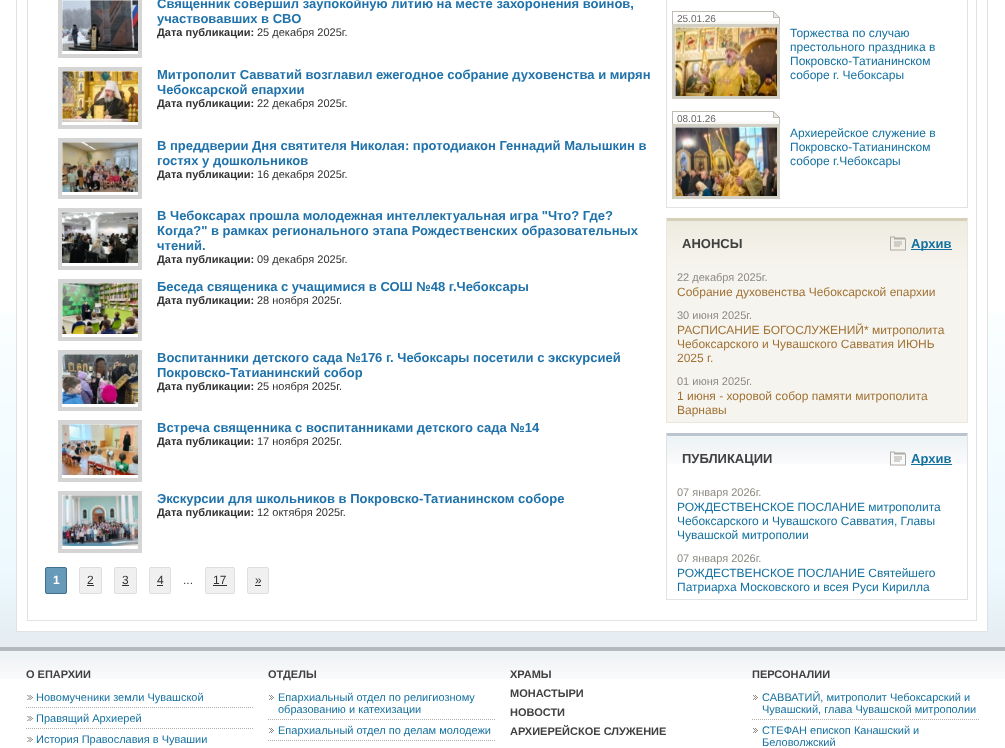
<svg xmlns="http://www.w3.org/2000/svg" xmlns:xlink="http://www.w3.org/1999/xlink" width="1005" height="748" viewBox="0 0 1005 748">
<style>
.cls-1{font:bold 13px Liberation Sans;fill:#2072aa}
.cls-2{font:bold 11px Liberation Sans;fill:#313131}
.cls-3{font:11px Liberation Sans;fill:#313131}
.cls-4{font:bold 12px Liberation Sans;fill:#ffffff}
.cls-5{font:12px Liberation Sans;fill:#313131}
.cls-6{font:12px Liberation Sans;fill:#414141}
.cls-7{font:10px Liberation Sans;fill:#666666}
.cls-8{font:12px Liberation Sans;fill:#14709f}
.cls-9{font:bold 13px Liberation Sans;fill:#414141}
.cls-10{font:bold 13px Liberation Sans;fill:#14709f}
.cls-11{font:11px Liberation Sans;fill:#8c8a82}
.cls-12{font:12px Liberation Sans;fill:#a07235}
.cls-13{font:bold 11px Liberation Sans;fill:#414141}
.cls-14{font:11px Liberation Sans;fill:#14709f}
</style>
<rect width="100%" height="100%" fill="#ffffff"/>
<image xlink:href="image0.png" x="0" y="313" width="1005" height="334"/>
<rect fill="#ffffff" x="17" y="313" width="970" height="318"/>
<rect fill="none" stroke="#e0e2e4" x="16.5" y="-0.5" width="971" height="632"/>
<rect fill="#e0e2e4" x="976" y="0" width="1" height="621"/>
<rect fill="#e0e2e4" x="27" y="620" width="950" height="1"/>
<rect fill="#e0e2e4" x="27" y="0" width="1" height="621"/>
<rect fill="none" stroke="#d5d5d5" stroke-width="4" x="60" y="-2" width="80" height="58"/>
<image xlink:href="image1.png" x="62" y="0" width="76" height="51"/>
<rect fill="none" stroke="#d5d5d5" stroke-width="4" x="60" y="69" width="80" height="58"/>
<image xlink:href="image2.png" x="62" y="71" width="76" height="51"/>
<rect fill="none" stroke="#d5d5d5" stroke-width="4" x="60" y="140" width="80" height="57"/>
<image xlink:href="image3.png" x="62" y="142" width="76" height="50"/>
<rect fill="none" stroke="#d5d5d5" stroke-width="4" x="60" y="210" width="80" height="58"/>
<image xlink:href="image4.png" x="62" y="212" width="76" height="51"/>
<rect fill="none" stroke="#d5d5d5" stroke-width="4" x="60" y="281" width="80" height="58"/>
<image xlink:href="image5.png" x="62" y="283" width="76" height="51"/>
<rect fill="none" stroke="#d5d5d5" stroke-width="4" x="60" y="352" width="80" height="57"/>
<image xlink:href="image6.png" x="62" y="354" width="76" height="50"/>
<rect fill="none" stroke="#d5d5d5" stroke-width="4" x="60" y="422" width="80" height="58"/>
<image xlink:href="image7.png" x="62" y="424" width="76" height="51"/>
<rect fill="none" stroke="#d5d5d5" stroke-width="4" x="60" y="493" width="80" height="58"/>
<image xlink:href="image8.png" x="62" y="495" width="76" height="51"/>
<rect fill="#6799b8" stroke="#41708e" x="45.5" y="567.5" width="21" height="26" rx="1.5"/>
<rect fill="#f0f0f0" stroke="#dedede" x="79.5" y="567.5" width="22" height="26" rx="1.5"/>
<rect fill="#313131" x="87" y="585" width="7" height="1"/>
<rect fill="#f0f0f0" stroke="#dedede" x="114.5" y="567.5" width="22" height="26" rx="1.5"/>
<rect fill="#313131" x="122" y="585" width="7" height="1"/>
<rect fill="#f0f0f0" stroke="#dedede" x="149.5" y="567.5" width="21" height="26" rx="1.5"/>
<rect fill="#313131" x="157" y="585" width="6" height="1"/>
<rect fill="#f0f0f0" stroke="#dedede" x="205.5" y="567.5" width="29" height="26" rx="1.5"/>
<rect fill="#313131" x="213" y="585" width="14" height="1"/>
<rect fill="#f0f0f0" stroke="#dedede" x="247.5" y="567.5" width="21" height="26" rx="1.5"/>
<rect fill="#313131" x="255" y="585" width="6" height="1"/>
<path fill="#e0e2e4" d="M968-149V208L967 207V-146Z"/>
<rect fill="#e0e2e4" x="666" y="207" width="302" height="1"/>
<path fill="#e0e2e4" d="M666 208V-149L667-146V207Z"/>
<image xlink:href="image9.png" x="672" y="11" width="108" height="13"/>
<rect fill="none" stroke="#d2cfc5" stroke-width="3" x="673.5" y="25.5" width="105" height="72"/>
<image xlink:href="image10.png" x="675" y="27" width="102" height="69"/>
<image xlink:href="image9.png" x="672" y="111" width="108" height="13"/>
<rect fill="none" stroke="#d2cfc5" stroke-width="3" x="673.5" y="125.5" width="105" height="72"/>
<image xlink:href="image11.png" x="675" y="127" width="102" height="69"/>
<image xlink:href="image12.png" x="667" y="221" width="300" height="201"/>
<path fill="#d7d0b9" d="M666 218H968L967 221H667Z"/>
<path fill="#ebe7da" d="M968 218V423L967 422V221Z"/>
<rect fill="#ebe7da" x="666" y="422" width="302" height="1"/>
<path fill="#ebe7da" d="M666 423V218L667 221V422Z"/>
<image xlink:href="image13.png" x="890" y="236" width="16" height="15"/>
<rect fill="#14709f" x="911" y="249" width="41" height="1"/>
<image xlink:href="image14.png" x="667" y="436" width="300" height="28"/>
<path fill="#bbc5cf" d="M666 433H968L967 436H667Z"/>
<path fill="#e0e2e4" d="M968 433V600L967 599V436Z"/>
<rect fill="#e0e2e4" x="666" y="599" width="302" height="1"/>
<path fill="#e0e2e4" d="M666 600V433L667 436V599Z"/>
<image xlink:href="image15.png" x="890" y="451" width="16" height="15"/>
<rect fill="#14709f" x="911" y="464" width="41" height="1"/>
<image xlink:href="image16.png" x="0" y="651" width="1005" height="28"/>
<rect fill="#b4b9bf" x="0" y="647" width="1005" height="4"/>
<image xlink:href="image17.png" x="27" y="695" width="6" height="5"/>
<path fill="none" stroke="#b1aea7" stroke-dasharray="1 1" d="M26 707.5H253"/>
<image xlink:href="image17.png" x="27" y="716" width="6" height="5"/>
<path fill="none" stroke="#b1aea7" stroke-dasharray="1 1" d="M26 728.5H253"/>
<image xlink:href="image17.png" x="27" y="737" width="6" height="5"/>
<image xlink:href="image18.png" x="269" y="695" width="5" height="5"/>
<path fill="none" stroke="#b1aea7" stroke-dasharray="1 1" d="M268 719.5H495"/>
<image xlink:href="image18.png" x="269" y="728" width="5" height="5"/>
<path fill="none" stroke="#b1aea7" stroke-dasharray="1 1" d="M268 740.5H495"/>
<image xlink:href="image18.png" x="753" y="695" width="5" height="5"/>
<path fill="none" stroke="#b1aea7" stroke-dasharray="1 1" d="M752 719.5H980"/>
<image xlink:href="image18.png" x="753" y="728" width="5" height="5"/>
<text class="cls-1"><tspan x="157" y="8">Священник совершил заупокойную литию на месте захоронения воинов,</tspan><tspan x="157" y="23">участвовавших в СВО</tspan></text>
<text class="cls-2" x="157" y="36">Дата публикации:</text>
<text class="cls-3" x="257" y="36">25 декабря 2025г.</text>
<text class="cls-1"><tspan x="157" y="79">Митрополит Савватий возглавил ежегодное собрание духовенства и мирян</tspan><tspan x="157" y="94">Чебоксарской епархии</tspan></text>
<text class="cls-2" x="157" y="107">Дата публикации:</text>
<text class="cls-3" x="257" y="107">22 декабря 2025г.</text>
<text class="cls-1"><tspan x="157" y="150">В преддверии Дня святителя Николая: протодиакон Геннадий Малышкин в</tspan><tspan x="157" y="165">гостях у дошкольников</tspan></text>
<text class="cls-2" x="157" y="178">Дата публикации:</text>
<text class="cls-3" x="257" y="178">16 декабря 2025г.</text>
<text class="cls-1"><tspan x="157" y="220">В Чебоксарах прошла молодежная интеллектуальная игра "Что? Где?</tspan><tspan x="157" y="235">Когда?" в рамках регионального этапа Рождественских образовательных</tspan><tspan x="157" y="250">чтений.</tspan></text>
<text class="cls-2" x="157" y="263">Дата публикации:</text>
<text class="cls-3" x="257" y="263">09 декабря 2025г.</text>
<text class="cls-1" x="157" y="291">Беседа священика с учащимися в СОШ №48 г.Чебоксары</text>
<text class="cls-2" x="157" y="304">Дата публикации:</text>
<text class="cls-3" x="257" y="304">28 ноября 2025г.</text>
<text class="cls-1"><tspan x="157" y="362">Воспитанники детского сада №176 г. Чебоксары посетили с экскурсией</tspan><tspan x="157" y="377">Покровско-Татианинский собор</tspan></text>
<text class="cls-2" x="157" y="390">Дата публикации:</text>
<text class="cls-3" x="257" y="390">25 ноября 2025г.</text>
<text class="cls-1" x="157" y="432">Встреча священника с воспитанниками детского сада №14</text>
<text class="cls-2" x="157" y="445">Дата публикации:</text>
<text class="cls-3" x="257" y="445">17 ноября 2025г.</text>
<text class="cls-1" x="157" y="503">Экскурсии для школьников в Покровско-Татианинском соборе</text>
<text class="cls-2" x="157" y="516">Дата публикации:</text>
<text class="cls-3" x="257" y="516">12 октября 2025г.</text>
<text class="cls-4" x="53" y="584">1</text>
<text class="cls-5" x="87" y="584">2</text>
<text class="cls-5" x="122" y="584">3</text>
<text class="cls-5" x="157" y="584">4</text>
<text class="cls-6" x="183" y="584">...</text>
<text class="cls-5" x="213" y="584">17</text>
<text class="cls-5" x="255" y="584">»</text>
<text class="cls-7" x="677" y="22">25.01.26</text>
<text class="cls-8"><tspan x="790" y="37">Торжества по случаю</tspan><tspan x="790" y="51">престольного праздника в</tspan><tspan x="790" y="65">Покровско-Татианинском</tspan><tspan x="790" y="79">соборе г. Чебоксары</tspan></text>
<text class="cls-7" x="677" y="122">08.01.26</text>
<text class="cls-8"><tspan x="790" y="137">Архиерейское служение в</tspan><tspan x="790" y="151">Покровско-Татианинском</tspan><tspan x="790" y="165">соборе г.Чебоксары</tspan></text>
<text class="cls-9" x="682" y="248">АНОНСЫ</text>
<text class="cls-10" x="911" y="248">Архив</text>
<text class="cls-11" x="677" y="281">22 декабря 2025г.</text>
<text class="cls-12" x="677" y="296">Собрание духовенства Чебоксарской епархии</text>
<text class="cls-11" x="677" y="319">30 июня 2025г.</text>
<text class="cls-12"><tspan x="677" y="334">РАСПИСАНИЕ БОГОСЛУЖЕНИЙ* митрополита</tspan><tspan x="677" y="348">Чебоксарского и Чувашского Савватия ИЮНЬ</tspan><tspan x="677" y="362">2025 г.</tspan></text>
<text class="cls-11" x="677" y="385">01 июня 2025г.</text>
<text class="cls-12"><tspan x="677" y="400">1 июня - хоровой собор памяти митрополита</tspan><tspan x="677" y="414">Варнавы</tspan></text>
<text class="cls-9" x="682" y="463">ПУБЛИКАЦИИ</text>
<text class="cls-10" x="911" y="463">Архив</text>
<text class="cls-11" x="677" y="496">07 января 2026г.</text>
<text class="cls-8"><tspan x="677" y="511">РОЖДЕСТВЕНСКОЕ ПОСЛАНИЕ митрополита</tspan><tspan x="677" y="525">Чебоксарского и Чувашского Савватия, Главы</tspan><tspan x="677" y="539">Чувашской митрополии</tspan></text>
<text class="cls-11" x="677" y="562">07 января 2026г.</text>
<text class="cls-8"><tspan x="677" y="577">РОЖДЕСТВЕНСКОЕ ПОСЛАНИЕ Святейшего</tspan><tspan x="677" y="591">Патриарха Московского и всея Руси Кирилла</tspan></text>
<text class="cls-13" x="26" y="678">О ЕПАРХИИ</text>
<text class="cls-14"><tspan x="36" y="701">Новомученики земли Чувашской</tspan><tspan x="36" y="722">Правящий Архиерей</tspan><tspan x="36" y="743">История Православия в Чувашии</tspan></text>
<text class="cls-13" x="268" y="678">ОТДЕЛЫ</text>
<text class="cls-14"><tspan x="278" y="701">Епархиальный отдел по религиозному</tspan><tspan x="278" y="713">образованию и катехизации</tspan><tspan x="278" y="734">Епархиальный отдел по делам молодежи</tspan></text>
<text class="cls-13"><tspan x="510" y="678">ХРАМЫ</tspan><tspan x="510" y="697">МОНАСТЫРИ</tspan><tspan x="510" y="716">НОВОСТИ</tspan><tspan x="510" y="735">АРХИЕРЕЙСКОЕ СЛУЖЕНИЕ</tspan></text>
<text class="cls-13" x="752" y="678">ПЕРСОНАЛИИ</text>
<text class="cls-14"><tspan x="762" y="701">САВВАТИЙ, митрополит Чебоксарский и</tspan><tspan x="762" y="713">Чувашский, глава Чувашской митрополии</tspan><tspan x="762" y="734">СТЕФАН епископ Канашский и</tspan><tspan x="762" y="746">Беловолжский</tspan></text>
</svg>
